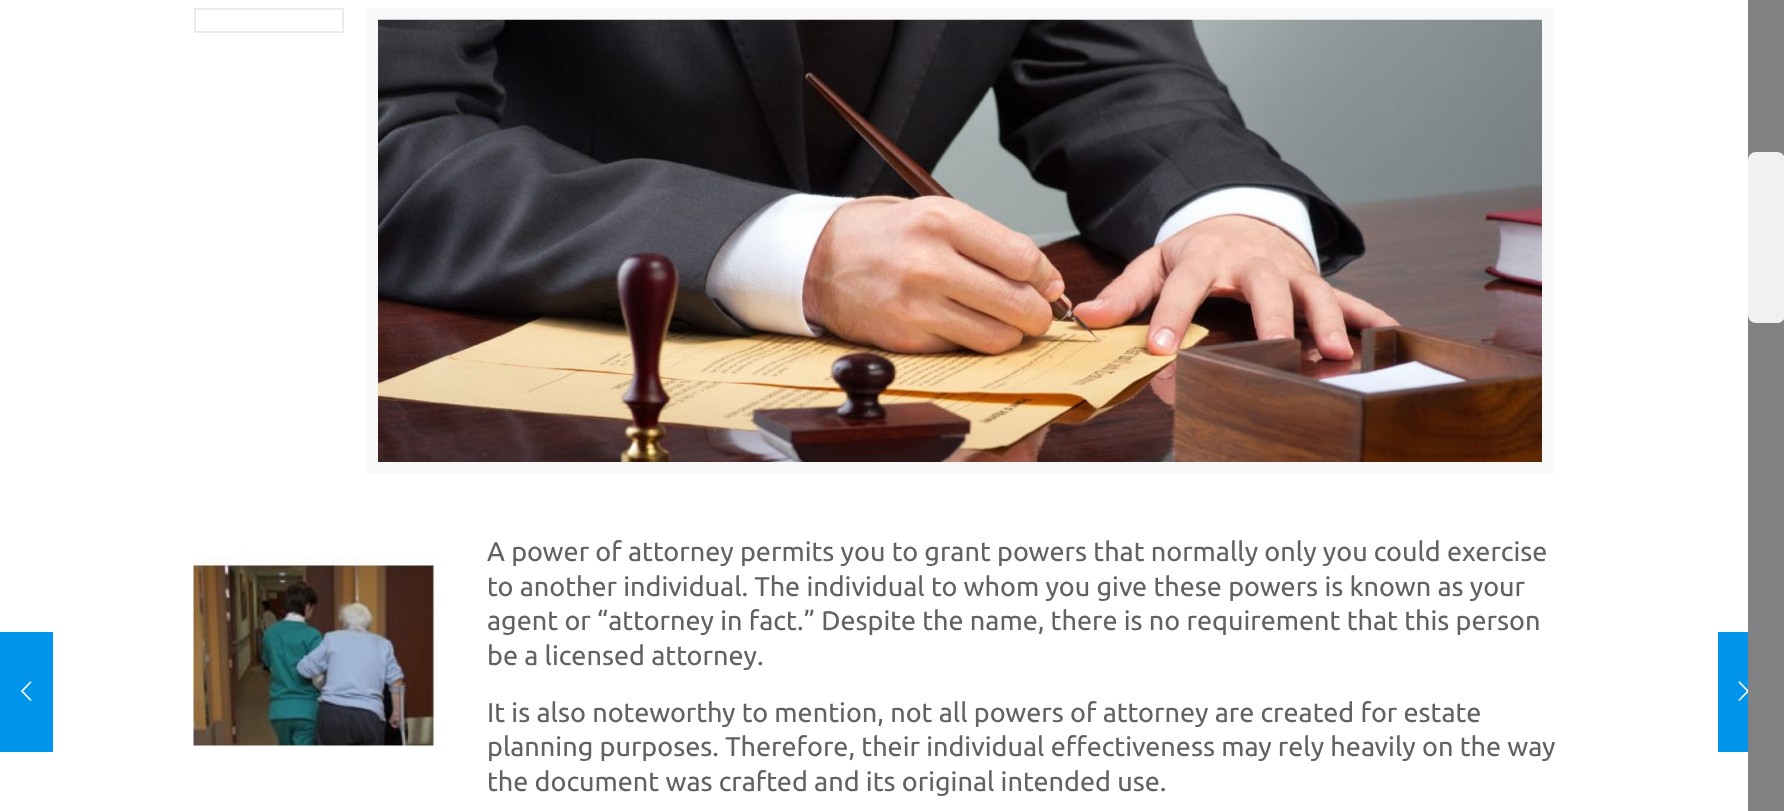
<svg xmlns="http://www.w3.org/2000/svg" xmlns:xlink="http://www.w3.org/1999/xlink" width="1784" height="811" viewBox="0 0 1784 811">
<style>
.cls-1{font:27px Ubuntu;fill:#626262}
</style>
<rect width="100%" height="100%" fill="#ffffff"/>
<rect fill="#0095eb" x="0" y="632" width="53" height="120"/>
<image xlink:href="image0.png" x="21" y="681" width="11" height="20"/>
<rect fill="none" stroke="#ebebeb" stroke-width="2" x="195" y="9" width="148" height="23"/>
<rect fill="none" stroke="#f8f8f8" stroke-width="12" x="372" y="14" width="1176" height="454"/>
<image xlink:href="image1.png" x="378" y="19" width="1164" height="443"/>
<image xlink:href="image2.png" x="193" y="556" width="242" height="190"/>
<rect fill="#0095eb" x="1718" y="632" width="30" height="120"/>
<image xlink:href="image3.png" x="1738" y="681" width="10" height="20"/>
<rect fill="#808283" x="1748" y="0" width="36" height="811"/>
<rect fill="#f1f1f1" x="1748" y="152" width="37" height="171" rx="8"/>
<text class="cls-1"><tspan x="487" y="561">A power of attorney permits you to grant powers that normally only you could exercise</tspan><tspan x="487" y="596">to another individual. The individual to whom you give these powers is known as your</tspan><tspan x="487" y="630">agent or “attorney in fact.” Despite the name, there is no requirement that this person</tspan><tspan x="487" y="665">be a licensed attorney.</tspan></text>
<text class="cls-1"><tspan x="487" y="722">It is also noteworthy to mention, not all powers of attorney are created for estate</tspan><tspan x="487" y="756">planning purposes. Therefore, their individual effectiveness may rely heavily on the way</tspan><tspan x="487" y="791">the document was crafted and its original intended use.</tspan></text>
</svg>
